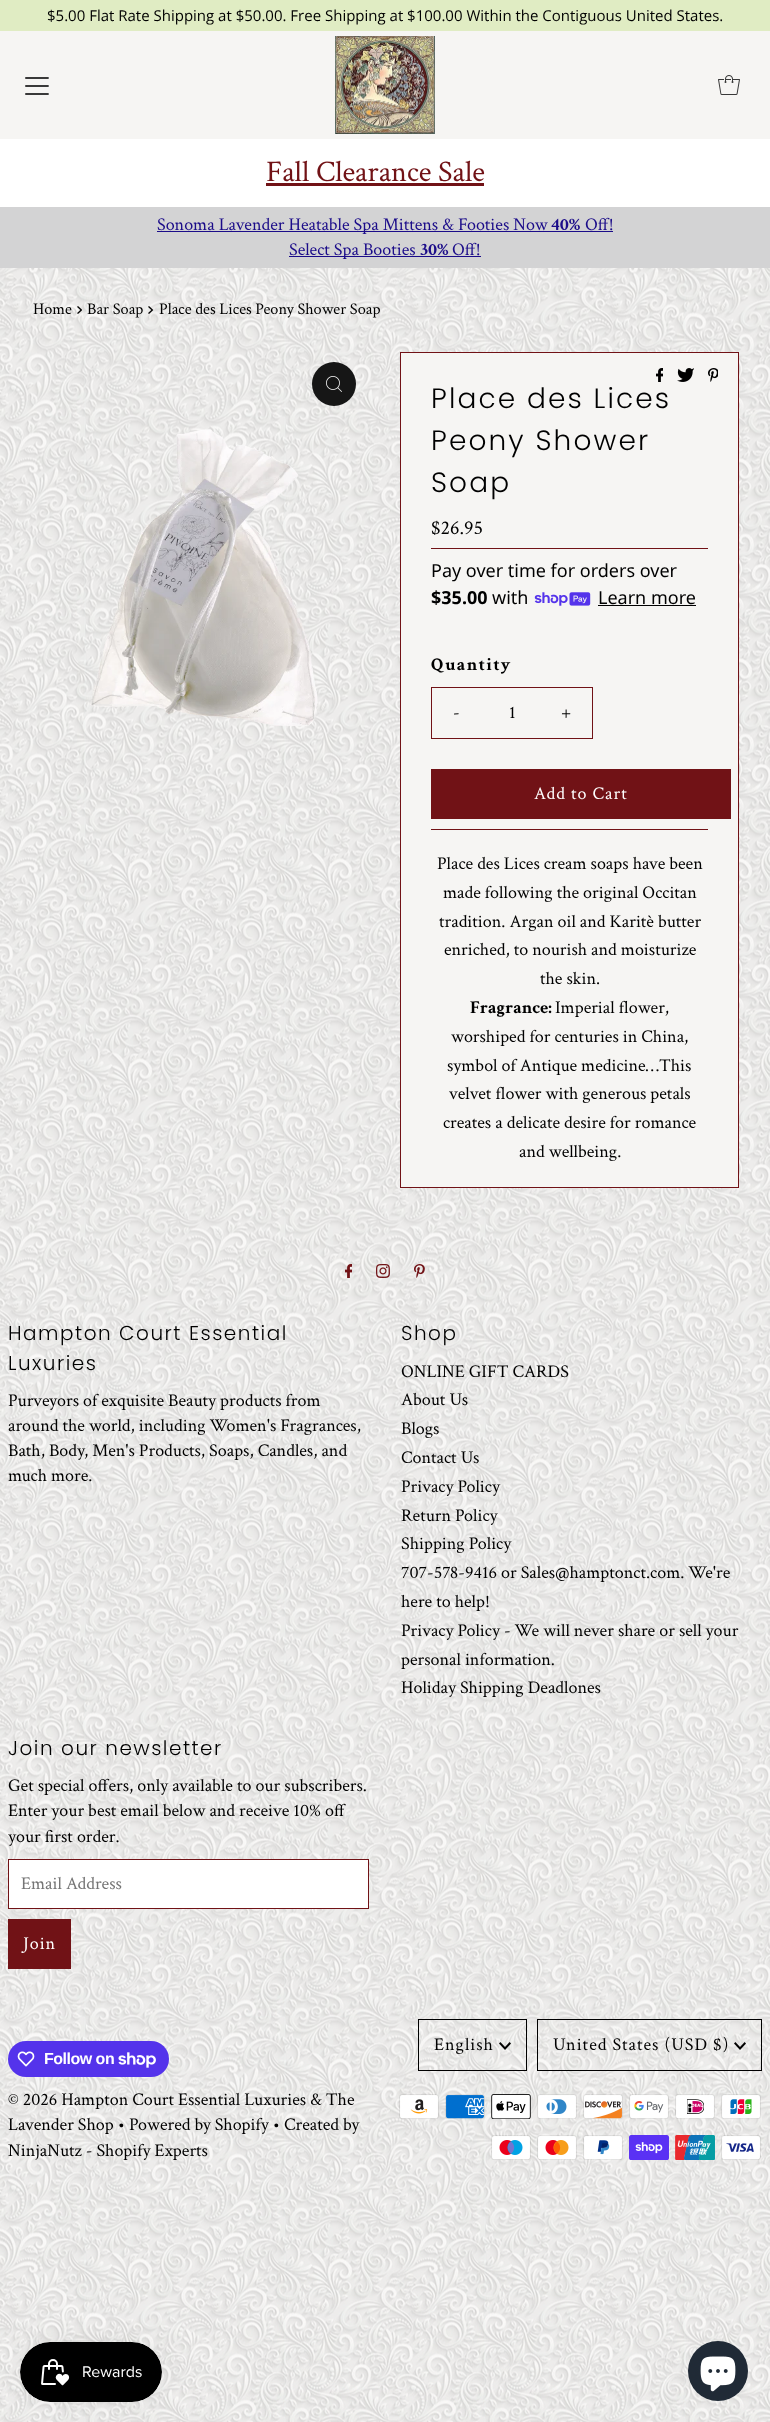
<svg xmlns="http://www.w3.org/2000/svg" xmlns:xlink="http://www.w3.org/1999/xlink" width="770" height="2422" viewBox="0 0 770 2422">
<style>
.cls-1{font:15px Open Sans;fill:#000000}
.cls-2{font:30px Crimson Text;fill:#711216}
.cls-3{font:18px Crimson Text;fill:#1b0c89}
.cls-4{font:bold 18px Crimson Text;fill:#1b0c89}
.cls-5{font:16.25px Crimson Text;fill:#000000}
.cls-6{font:300 28px Poppins;letter-spacing:2.1px;fill:#000000}
.cls-7{font:20px Crimson Text;fill:#000000}
.cls-8{font:18px Noto Sans;fill:#000000}
.cls-9{font:bold 18px Noto Sans;fill:#000000}
.cls-10{font:bold 18px Crimson Text;letter-spacing:1.25px;fill:#000000}
.cls-11{font:18px Crimson Text;letter-spacing:1px;fill:#000000}
.cls-12{font:18px Crimson Text;fill:#000000}
.cls-13{font:18px Crimson Text;letter-spacing:1px;fill:#ffffff}
.cls-14{font:bold 18px Crimson Text;fill:#000000}
.cls-15{font:300 20px Poppins;letter-spacing:1.5px;fill:#000000}
.cls-16{font:18px Crimson Text;fill:#757575}
.cls-17{font:bold 16px Liberation Sans;letter-spacing:-0.5px;fill:#ffffff}
</style>
<rect width="100%" height="100%" fill="#f6f5f3"/>
<image xlink:href="image0.png" x="0" y="268" width="770" height="2154"/>
<rect fill="#e0ecc3" x="0" y="0" width="770" height="31"/>
<image xlink:href="image1.png" x="25" y="77" width="24" height="18"/>
<image xlink:href="image2.png" x="335" y="36" width="100" height="98"/>
<image xlink:href="image3.png" x="718" y="75" width="22" height="20"/>
<rect fill="#ffffff" x="0" y="139" width="770" height="68"/>
<rect fill="#711216" x="266" y="183" width="218" height="3"/>
<rect fill="#d3d3d4" x="0" y="207" width="770" height="61"/>
<rect fill="#1b0c89" x="157" y="231" width="456" height="1"/>
<rect fill="#1b0c89" x="289" y="256" width="192" height="1"/>
<image xlink:href="image4.png" x="77" y="306" width="5" height="8"/>
<image xlink:href="image5.png" x="148" y="306" width="6" height="8"/>
<circle fill="#161616" cx="334" cy="384" r="22"/>
<image xlink:href="image6.png" x="326" y="376" width="16" height="16"/>
<image xlink:href="image7.png" x="90" y="429" width="228" height="297"/>
<rect fill="#f6f5f3" stroke="#711216" x="400.5" y="352.5" width="338" height="835"/>
<image xlink:href="image8.png" x="656" y="368" width="7" height="14"/>
<image xlink:href="image9.png" x="677" y="368" width="17" height="14"/>
<image xlink:href="image10.png" x="708" y="368" width="10" height="14"/>
<rect fill="#711216" x="431" y="548" width="277" height="1"/>
<image xlink:href="image11.png" x="534" y="592" width="57" height="14"/>
<rect fill="#000000" x="598" y="605" width="98" height="1"/>
<rect fill="none" stroke="#711216" x="431.5" y="687.5" width="161" height="51"/>
<rect fill="#711216" x="431" y="829" width="277" height="1"/>
<rect fill="#711216" x="431" y="769" width="300" height="50"/>
<image xlink:href="image12.png" x="345" y="1264" width="7" height="14"/>
<image xlink:href="image13.png" x="376" y="1264" width="14" height="14"/>
<image xlink:href="image14.png" x="414" y="1264" width="11" height="14"/>
<rect fill="#ffffff" stroke="#711216" x="8.5" y="1859.5" width="360" height="49"/>
<rect fill="#711216" x="8" y="1919" width="63" height="50"/>
<rect fill="none" stroke="#000000" x="418.5" y="2019.5" width="108" height="51"/>
<image xlink:href="image15.png" x="499" y="2042" width="12" height="8"/>
<rect fill="none" stroke="#000000" x="537.5" y="2019.5" width="224" height="51"/>
<image xlink:href="image16.png" x="734" y="2042" width="12" height="8"/>
<image xlink:href="image17.png" x="399" y="2094" width="40" height="25"/>
<image xlink:href="image18.png" x="445" y="2094" width="40" height="25"/>
<image xlink:href="image19.png" x="491" y="2094" width="40" height="25"/>
<image xlink:href="image20.png" x="537" y="2094" width="40" height="25"/>
<image xlink:href="image21.png" x="583" y="2094" width="40" height="25"/>
<image xlink:href="image22.png" x="629" y="2094" width="40" height="25"/>
<image xlink:href="image23.png" x="675" y="2094" width="40" height="25"/>
<image xlink:href="image24.png" x="721" y="2094" width="40" height="25"/>
<image xlink:href="image25.png" x="491" y="2135" width="40" height="25"/>
<image xlink:href="image26.png" x="537" y="2135" width="40" height="25"/>
<image xlink:href="image27.png" x="583" y="2135" width="40" height="25"/>
<image xlink:href="image28.png" x="629" y="2135" width="40" height="25"/>
<image xlink:href="image29.png" x="675" y="2135" width="40" height="25"/>
<image xlink:href="image30.png" x="721" y="2135" width="40" height="25"/>
<rect fill="#5433eb" x="8" y="2041" width="161" height="36" rx="18"/>
<image xlink:href="image31.png" x="17" y="2051" width="18" height="16"/>
<image xlink:href="image32.png" x="118" y="2052" width="38" height="16"/>
<rect fill="#000000" fill-opacity="0.05" filter="blur(12.5px)" x="20" y="2342" width="142" height="60" rx="30"/>
<image xlink:href="image33.png" x="20" y="2342" width="142" height="60"/>
<circle fill="#202a36" cx="718" cy="2371" r="30"/>
<image xlink:href="image34.png" x="700" y="2356" width="36" height="36"/>
<text class="cls-1" x="47" y="21">$5.00 Flat Rate Shipping at $50.00. Free Shipping at $100.00 Within the Contiguous United States.</text>
<text class="cls-2" x="266" y="181">Fall Clearance Sale</text>
<text class="cls-3" x="157" y="230">Sonoma Lavender Heatable Spa Mittens &amp; Footies Now</text>
<text class="cls-4" x="551" y="230">40%</text>
<text class="cls-3" x="585" y="230">Off!</text>
<text class="cls-3" x="289" y="255">Select Spa Booties</text>
<text class="cls-4" x="420" y="255">30%</text>
<text class="cls-3" x="452" y="255">Off!</text>
<text class="cls-5" x="33" y="314">Home</text>
<text class="cls-5" x="87" y="314">Bar Soap</text>
<text class="cls-5" x="159" y="314">Place des Lices Peony Shower Soap</text>
<text class="cls-6"><tspan x="431" y="408">Place des Lices</tspan><tspan x="431" y="450">Peony Shower</tspan><tspan x="431" y="492">Soap</tspan></text>
<text class="cls-7" x="431" y="534">$26.95</text>
<text class="cls-8" x="431" y="577">Pay over time for orders over</text>
<text class="cls-9" x="431" y="604">$35.00</text>
<text class="cls-8" x="492" y="604">with</text>
<text class="cls-8" x="598" y="604">Learn more</text>
<text class="cls-10" x="431" y="670">Quantity</text>
<text class="cls-11" x="453" y="718">-</text>
<text class="cls-12" x="509" y="718">1</text>
<text class="cls-11" x="561" y="718">+</text>
<text class="cls-13" x="534" y="799">Add to Cart</text>
<text class="cls-12" x="437" y="869">Place des Lices cream soaps have been</text>
<text class="cls-12" x="443" y="898">made following the original Occitan</text>
<text class="cls-12" x="439" y="927">tradition. Argan oil and Karitè butter</text>
<text class="cls-12" x="444" y="955">enriched, to nourish and moisturize</text>
<text class="cls-12" x="540" y="984">the skin.</text>
<text class="cls-14" x="470" y="1013">Fragrance:</text>
<text class="cls-12" x="555" y="1013">Imperial flower,</text>
<text class="cls-12" x="451" y="1042">worshiped for centuries in China,</text>
<text class="cls-12" x="447" y="1071">symbol of Antique medicine…This</text>
<text class="cls-12" x="449" y="1099">velvet flower with generous petals</text>
<text class="cls-12" x="443" y="1128">creates a delicate desire for romance</text>
<text class="cls-12" x="519" y="1157">and wellbeing.</text>
<text class="cls-15"><tspan x="8" y="1340">Hampton Court Essential</tspan><tspan x="8" y="1370">Luxuries</tspan></text>
<text class="cls-12"><tspan x="8" y="1406">Purveyors of exquisite Beauty products from</tspan><tspan x="8" y="1431">around the world, including Women's Fragrances,</tspan><tspan x="8" y="1456">Bath, Body, Men's Products, Soaps, Candles, and</tspan><tspan x="8" y="1481">much more.</tspan></text>
<text class="cls-15" x="401" y="1340">Shop</text>
<text class="cls-12"><tspan x="401" y="1377">ONLINE GIFT CARDS</tspan><tspan x="401" y="1405">About Us</tspan><tspan x="401" y="1434">Blogs</tspan><tspan x="401" y="1463">Contact Us</tspan><tspan x="401" y="1492">Privacy Policy</tspan><tspan x="401" y="1521">Return Policy</tspan><tspan x="401" y="1549">Shipping Policy</tspan><tspan x="401" y="1578">707-578-9416 or Sales@hamptonct.com. We're</tspan><tspan x="401" y="1607">here to help!</tspan><tspan x="401" y="1636">Privacy Policy - We will never share or sell your</tspan><tspan x="401" y="1665">personal information.</tspan><tspan x="401" y="1693">Holiday Shipping Deadlones</tspan></text>
<text class="cls-15" x="8" y="1755">Join our newsletter</text>
<text class="cls-12"><tspan x="8" y="1791">Get special offers, only available to our subscribers.</tspan><tspan x="8" y="1816">Enter your best email below and receive 10% off</tspan><tspan x="8" y="1842">your first order.</tspan></text>
<text class="cls-16" x="21" y="1889">Email Address</text>
<text class="cls-13" x="23" y="1949">Join</text>
<text class="cls-11" x="434" y="2050">English</text>
<text class="cls-11" x="553" y="2050">United States (USD $)</text>
<text class="cls-17" x="44" y="2064">Follow on</text>
<text class="cls-12"><tspan x="8" y="2105">© 2026 Hampton Court Essential Luxuries &amp; The</tspan><tspan x="8" y="2130">Lavender Shop • Powered by Shopify • Created by</tspan><tspan x="8" y="2156">NinjaNutz - Shopify Experts</tspan></text>
</svg>
